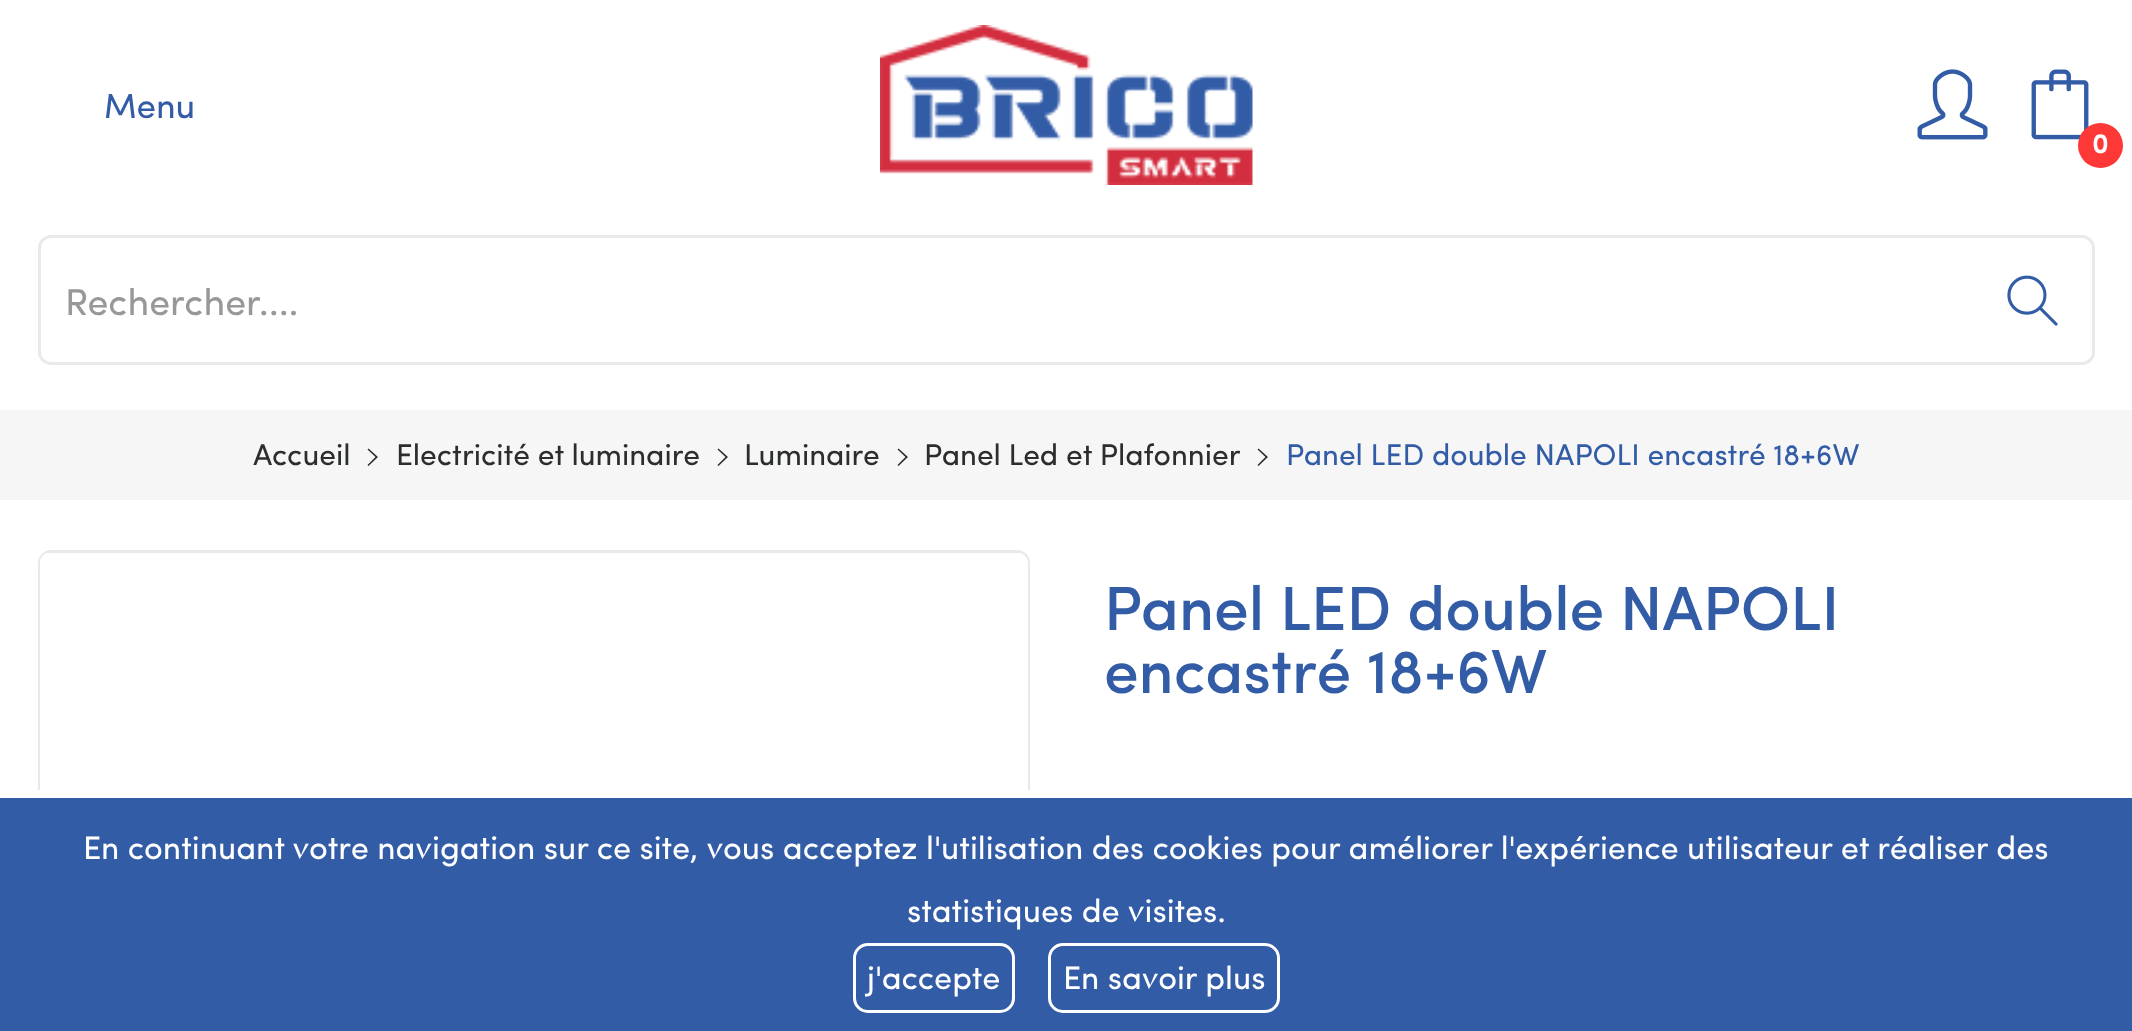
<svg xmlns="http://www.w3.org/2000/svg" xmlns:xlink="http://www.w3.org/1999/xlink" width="2132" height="1031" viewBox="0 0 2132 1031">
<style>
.cls-1{font:35px Sofia;fill:#335ca7}
.cls-2{font:600 28px Sofia;fill:#ffffff}
.cls-3{font:37.5px Sofia;fill:#989898}
.cls-4{font:30px Sofia;fill:#2b2d2f}
.cls-5{font:30px Sofia;fill:#335ca7}
.cls-6{font:500 62.5px Sofia;fill:#335ca7}
.cls-7{font:32.5px Sofia;fill:#ffffff}
</style>
<rect width="100%" height="100%" fill="#ffffff"/>
<image xlink:href="image0.png" x="880" y="25" width="373" height="160"/>
<image xlink:href="image1.png" x="1917" y="69" width="71" height="71"/>
<image xlink:href="image2.png" x="2031" y="69" width="58" height="71"/>
<circle fill="#fe3737" cx="2100.5" cy="145.5" r="22.5"/>
<rect fill="none" stroke="#eaeaea" stroke-width="3" x="39.5" y="236.5" width="2054" height="127" rx="11.5"/>
<image xlink:href="image3.png" x="2007" y="275" width="51" height="51"/>
<rect fill="#f6f6f6" x="0" y="410" width="2132" height="90"/>
<path fill="#2b2d2f" d="M367.5 449.5L368.5 448.5L378 457L368.5 466L367.5 465L375.5 457Z"/>
<path fill="#2b2d2f" d="M717.5 449.5L718.5 448.5L728 457L718.5 466L717.5 465L725.5 457Z"/>
<path fill="#2b2d2f" d="M897.5 449.5L898.5 448.5L908 457L898.5 466L897.5 465L905.5 457Z"/>
<path fill="#2b2d2f" d="M1257.5 449.5L1258.5 448.5L1268 457L1258.5 466L1257.5 465L1265.5 457Z"/>
<rect fill="none" stroke="#e9e9e9" stroke-width="3" x="39.5" y="551.5" width="989" height="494" rx="11.5"/>
<rect fill="#ffffff" x="40" y="553" width="988" height="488" rx="10"/>
<image xlink:href="image4.png" x="40" y="553" width="985" height="237"/>
<rect fill="#335ca7" x="0" y="798" width="2132" height="233"/>
<rect fill="#ffffff" x="38" y="790" width="992" height="8"/>
<rect fill="none" stroke="#ffffff" stroke-width="3" x="854.5" y="944.5" width="159" height="67" rx="13.5"/>
<rect fill="none" stroke="#ffffff" stroke-width="3" x="1049.5" y="944.5" width="229" height="67" rx="13.5"/>
<text class="cls-1" x="104" y="118">Menu</text>
<text class="cls-2" x="2092" y="153">0</text>
<text class="cls-3" x="65" y="315">Rechercher....</text>
<text class="cls-4" x="253" y="465">Accueil</text>
<text class="cls-4" x="396" y="465">Electricité et luminaire</text>
<text class="cls-4" x="744" y="465">Luminaire</text>
<text class="cls-4" x="924" y="465">Panel Led et Plafonnier</text>
<text class="cls-5" x="1286" y="465">Panel LED double NAPOLI encastré 18+6W</text>
<text class="cls-6"><tspan x="1104" y="630">Panel LED double NAPOLI</tspan><tspan x="1104" y="693">encastré 18+6W</tspan></text>
<text class="cls-7" x="83" y="859">En continuant votre navigation sur ce site, vous acceptez l'utilisation des cookies pour améliorer l'expérience utilisateur et réaliser des</text>
<text class="cls-7" x="907" y="922">statistiques de visites.</text>
<text class="cls-7" x="867" y="989">j'accepte</text>
<text class="cls-7" x="1063" y="989">En savoir plus</text>
</svg>
